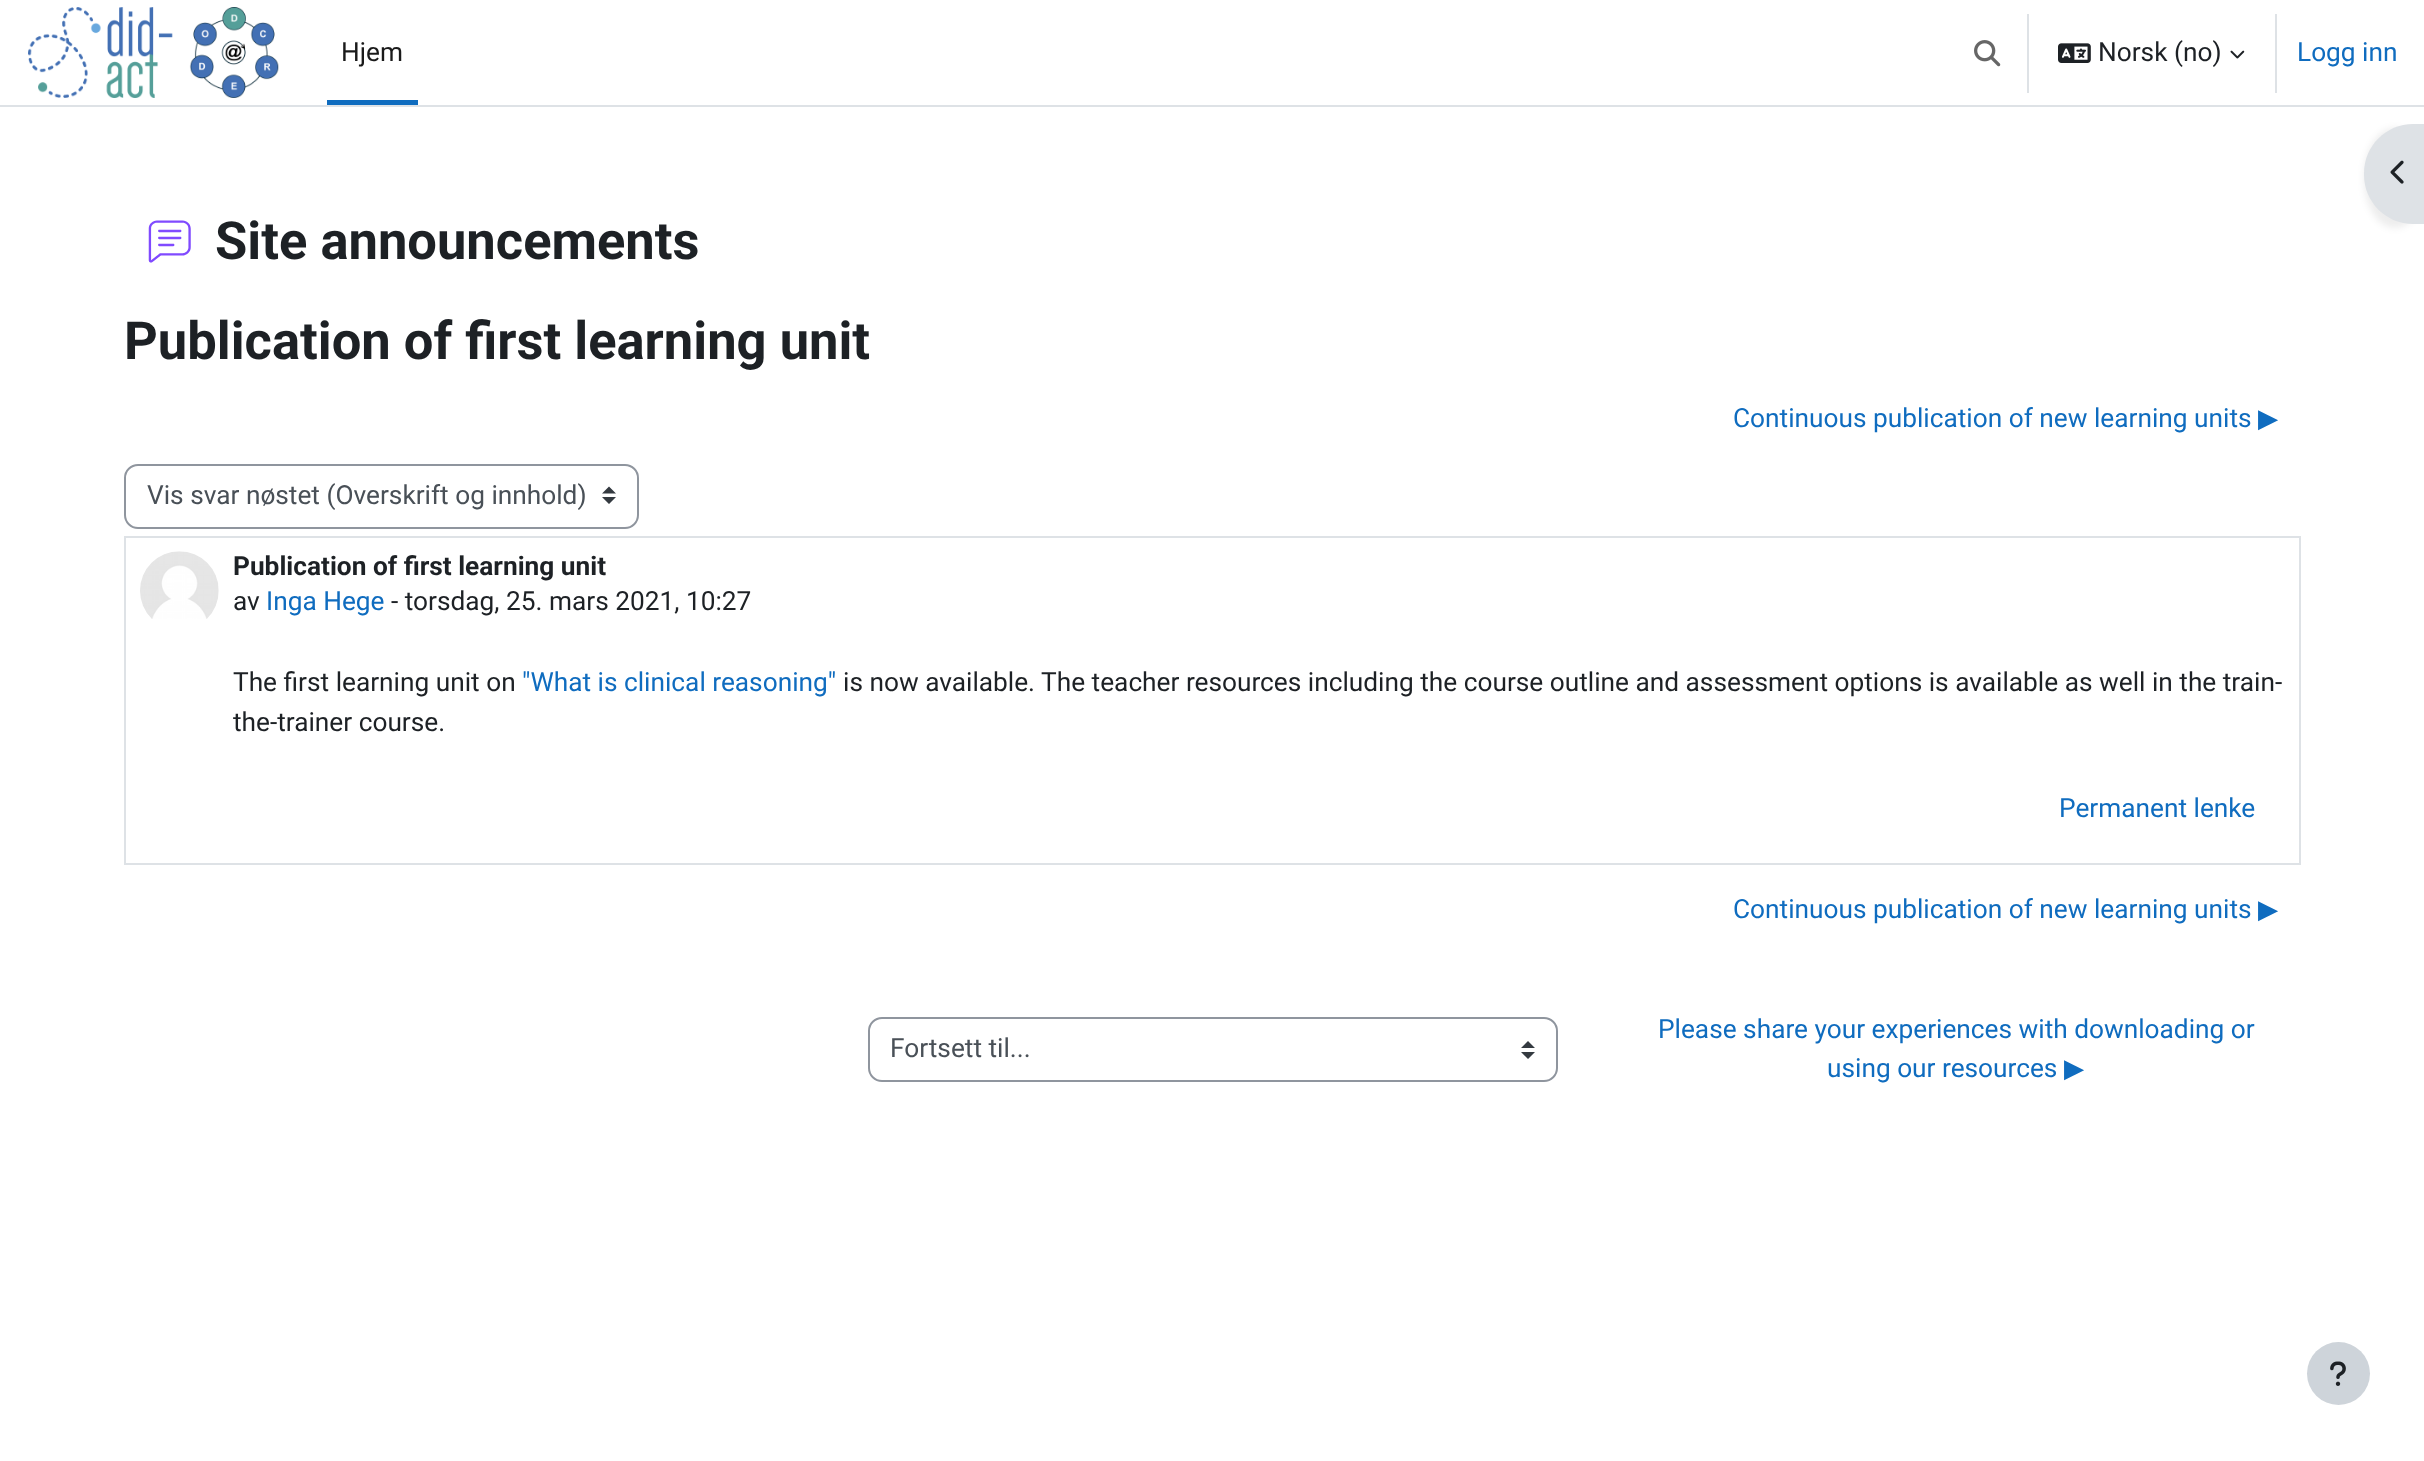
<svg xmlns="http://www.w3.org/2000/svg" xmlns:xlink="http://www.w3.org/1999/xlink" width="2424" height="1461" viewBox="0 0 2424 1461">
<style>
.cls-1{font:26.25px Roboto;fill:#1a1a1a}
.cls-2{font:26.25px Roboto;fill:#1d2125}
.cls-3{font:26.25px Roboto;fill:#0f6cbf}
.cls-4{font:bold 52.5px Roboto;fill:#1d2125}
.cls-5{font:26.25px DejaVu Sans;fill:#0f6cbf}
.cls-6{font:26.25px Roboto;fill:#495057}
.cls-7{font:bold 26.25px Roboto;fill:#1d2125}
</style>
<rect width="100%" height="100%" fill="#ffffff"/>
<rect fill="#dee2e6" x="0" y="105" width="2424" height="2"/>
<image xlink:href="image0.png" x="28" y="7" width="251" height="91"/>
<rect fill="#0f6cbf" x="327" y="100" width="91" height="5"/>
<image xlink:href="image1.png" x="1974" y="40" width="27" height="27"/>
<rect fill="#dee2e6" x="2027" y="14" width="2" height="79"/>
<image xlink:href="image2.png" x="2058" y="43" width="33" height="20"/>
<image xlink:href="image3.png" x="2230" y="50" width="15" height="9"/>
<rect fill="#dee2e6" x="2275" y="14" width="2" height="79"/>
<image xlink:href="image4.png" x="148" y="220" width="43" height="43"/>
<rect fill="#000000" fill-opacity="0.07" filter="blur(3.5px)" x="2364" y="128" width="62" height="100" rx="49"/>
<path fill="#dee2e6" d="M2413 124H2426V224H2413C2386 224 2364 202 2364 175V173C2364 146 2386 124 2413 124Z"/>
<image xlink:href="image5.png" x="2390" y="160" width="14" height="24"/>
<path fill="#343a40" d="M609 486.5L602 493.5H616ZM609 504L602 497H616Z"/>
<rect fill="none" stroke="#8f959e" stroke-width="2" x="125" y="465" width="513" height="63" rx="13"/>
<rect fill="none" stroke="#dee2e6" stroke-width="2" x="125" y="537" width="2175" height="327"/>
<image xlink:href="image6.png" x="140" y="551" width="79" height="68"/>
<path fill="#343a40" d="M1528 1041L1521 1048H1535ZM1528 1059L1521 1052H1535Z"/>
<rect fill="none" stroke="#8f959e" stroke-width="2" x="869" y="1018" width="688" height="63" rx="13"/>
<circle fill="#ced4da" cx="2338.5" cy="1373.5" r="31.5"/>
<image xlink:href="image7.png" x="2330" y="1361" width="16" height="25"/>
<text class="cls-1" x="341" y="61">Hjem</text>
<text class="cls-2" x="2098" y="61">Norsk (no)</text>
<text class="cls-3" x="2297" y="61">Logg inn</text>
<text class="cls-4" x="215" y="259">Site announcements</text>
<text class="cls-4" x="124" y="359">Publication of first learning unit</text>
<text class="cls-3" x="1733" y="427">Continuous publication of new learning units</text>
<text class="cls-5" x="2258" y="427">▶︎</text>
<text class="cls-6" x="147" y="504">Vis svar nøstet (Overskrift og innhold)</text>
<text class="cls-7" x="233" y="575">Publication of first learning unit</text>
<text class="cls-2" x="233" y="610">av</text>
<text class="cls-3" x="266" y="610">Inga Hege</text>
<text class="cls-2" x="391" y="610">- torsdag, 25. mars 2021, 10:27</text>
<text class="cls-2" x="233" y="691">The first learning unit on</text>
<text class="cls-3" x="522" y="691">"What is clinical reasoning"</text>
<text class="cls-2" x="843" y="691">is now available. The teacher resources including the course outline and assessment options is available as well in the train-</text>
<text class="cls-2" x="233" y="731">the-trainer course.</text>
<text class="cls-3" x="2059" y="817">Permanent lenke</text>
<text class="cls-3" x="1733" y="918">Continuous publication of new learning units</text>
<text class="cls-5" x="2258" y="918">▶︎</text>
<text class="cls-6" x="890" y="1057">Fortsett til...</text>
<text class="cls-3" x="1658" y="1038">Please share your experiences with downloading or</text>
<text class="cls-3" x="1827" y="1077">using our resources</text>
<text class="cls-5" x="2064" y="1077">▶︎</text>
</svg>
